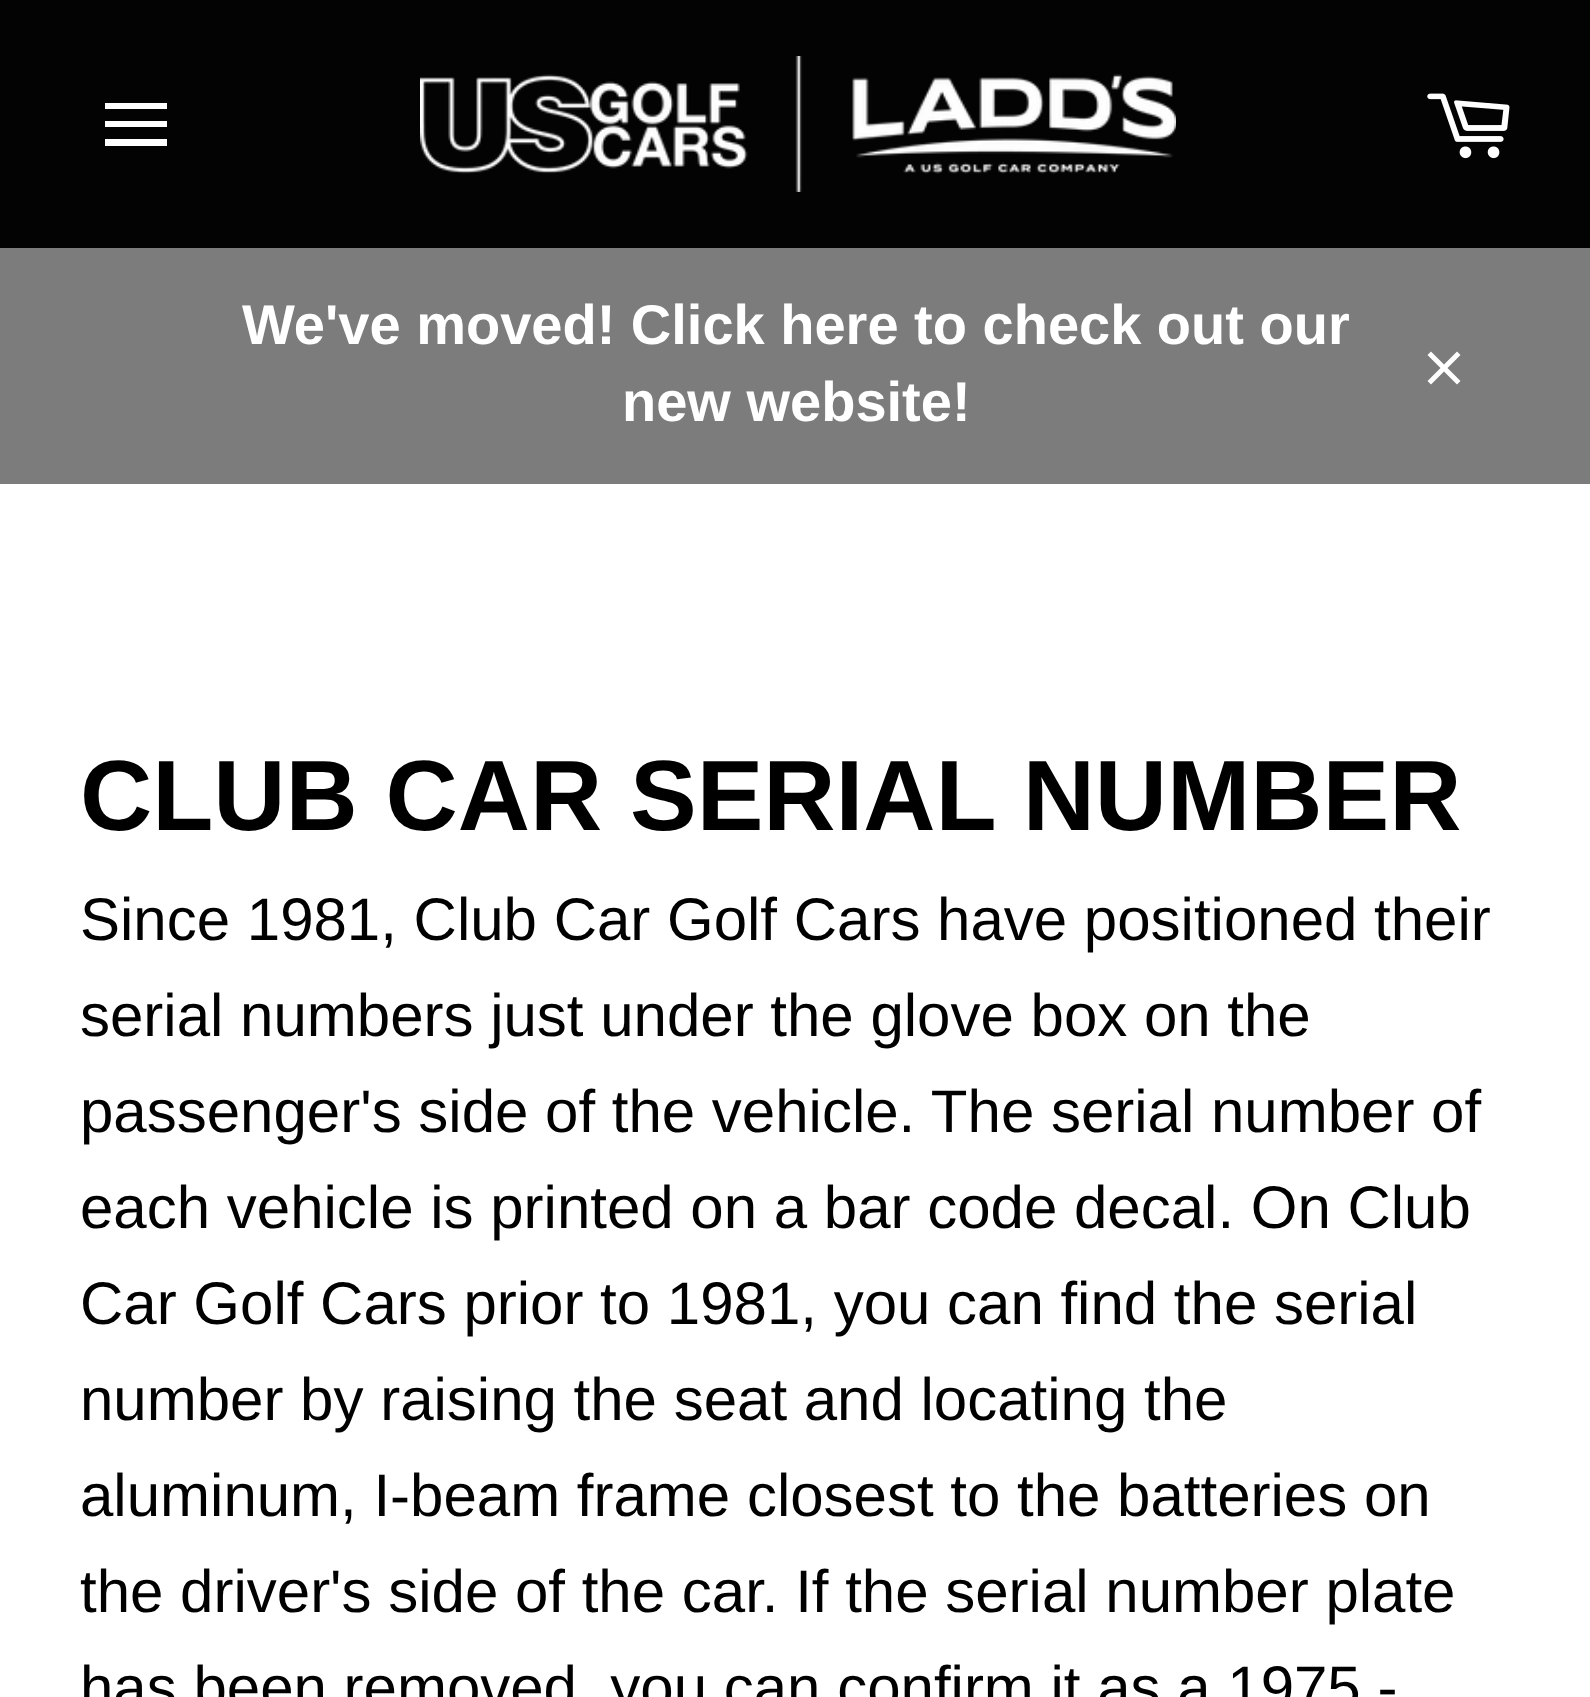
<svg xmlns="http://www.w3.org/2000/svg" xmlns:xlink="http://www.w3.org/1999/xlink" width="1590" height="1697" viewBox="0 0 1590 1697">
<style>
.cls-1{font:bold 56px Liberation Sans;fill:#ffffff}
.cls-2{font:bold 100px Liberation Sans;fill:#000000}
.cls-3{font:60px Liberation Sans;fill:#000000}
</style>
<rect width="100%" height="100%" fill="#ffffff"/>
<rect fill="#030303" x="0" y="0" width="1590" height="248"/>
<path fill="#ffffff" d="M105 121H167V127H105ZM105 103H167V109H105ZM105 139H167V146H105Z"/>
<image xlink:href="image0.png" x="420" y="56" width="756" height="136"/>
<image xlink:href="image1.png" x="1427" y="93" width="83" height="66"/>
<rect fill="#7c7c7c" x="0" y="248" width="1590" height="236"/>
<path fill="#ffffff" d="M1460.5 355L1457 351.5L1444 364.5L1431 351.5L1427.5 355L1440.5 368L1427.5 381L1431 384.5L1444 371.5L1457 384.5L1460.5 381L1447.5 368Z"/>
<text class="cls-1" x="242" y="344">We've moved! Click here to check out our</text>
<text class="cls-1" x="622" y="421">new website!</text>
<text class="cls-2" x="80" y="830">CLUB CAR SERIAL NUMBER</text>
<text class="cls-3"><tspan x="80" y="940">Since 1981, Club Car Golf Cars have positioned their</tspan><tspan x="80" y="1036">serial numbers just under the glove box on the</tspan><tspan x="80" y="1132">passenger's side of the vehicle. The serial number of</tspan><tspan x="80" y="1228">each vehicle is printed on a bar code decal. On Club</tspan><tspan x="80" y="1324">Car Golf Cars prior to 1981, you can find the serial</tspan><tspan x="80" y="1420">number by raising the seat and locating the</tspan><tspan x="80" y="1516">aluminum, I-beam frame closest to the batteries on</tspan><tspan x="80" y="1612">the driver's side of the car. If the serial number plate</tspan><tspan x="80" y="1708">has been removed, you can confirm it as a 1975 -</tspan></text>
</svg>
